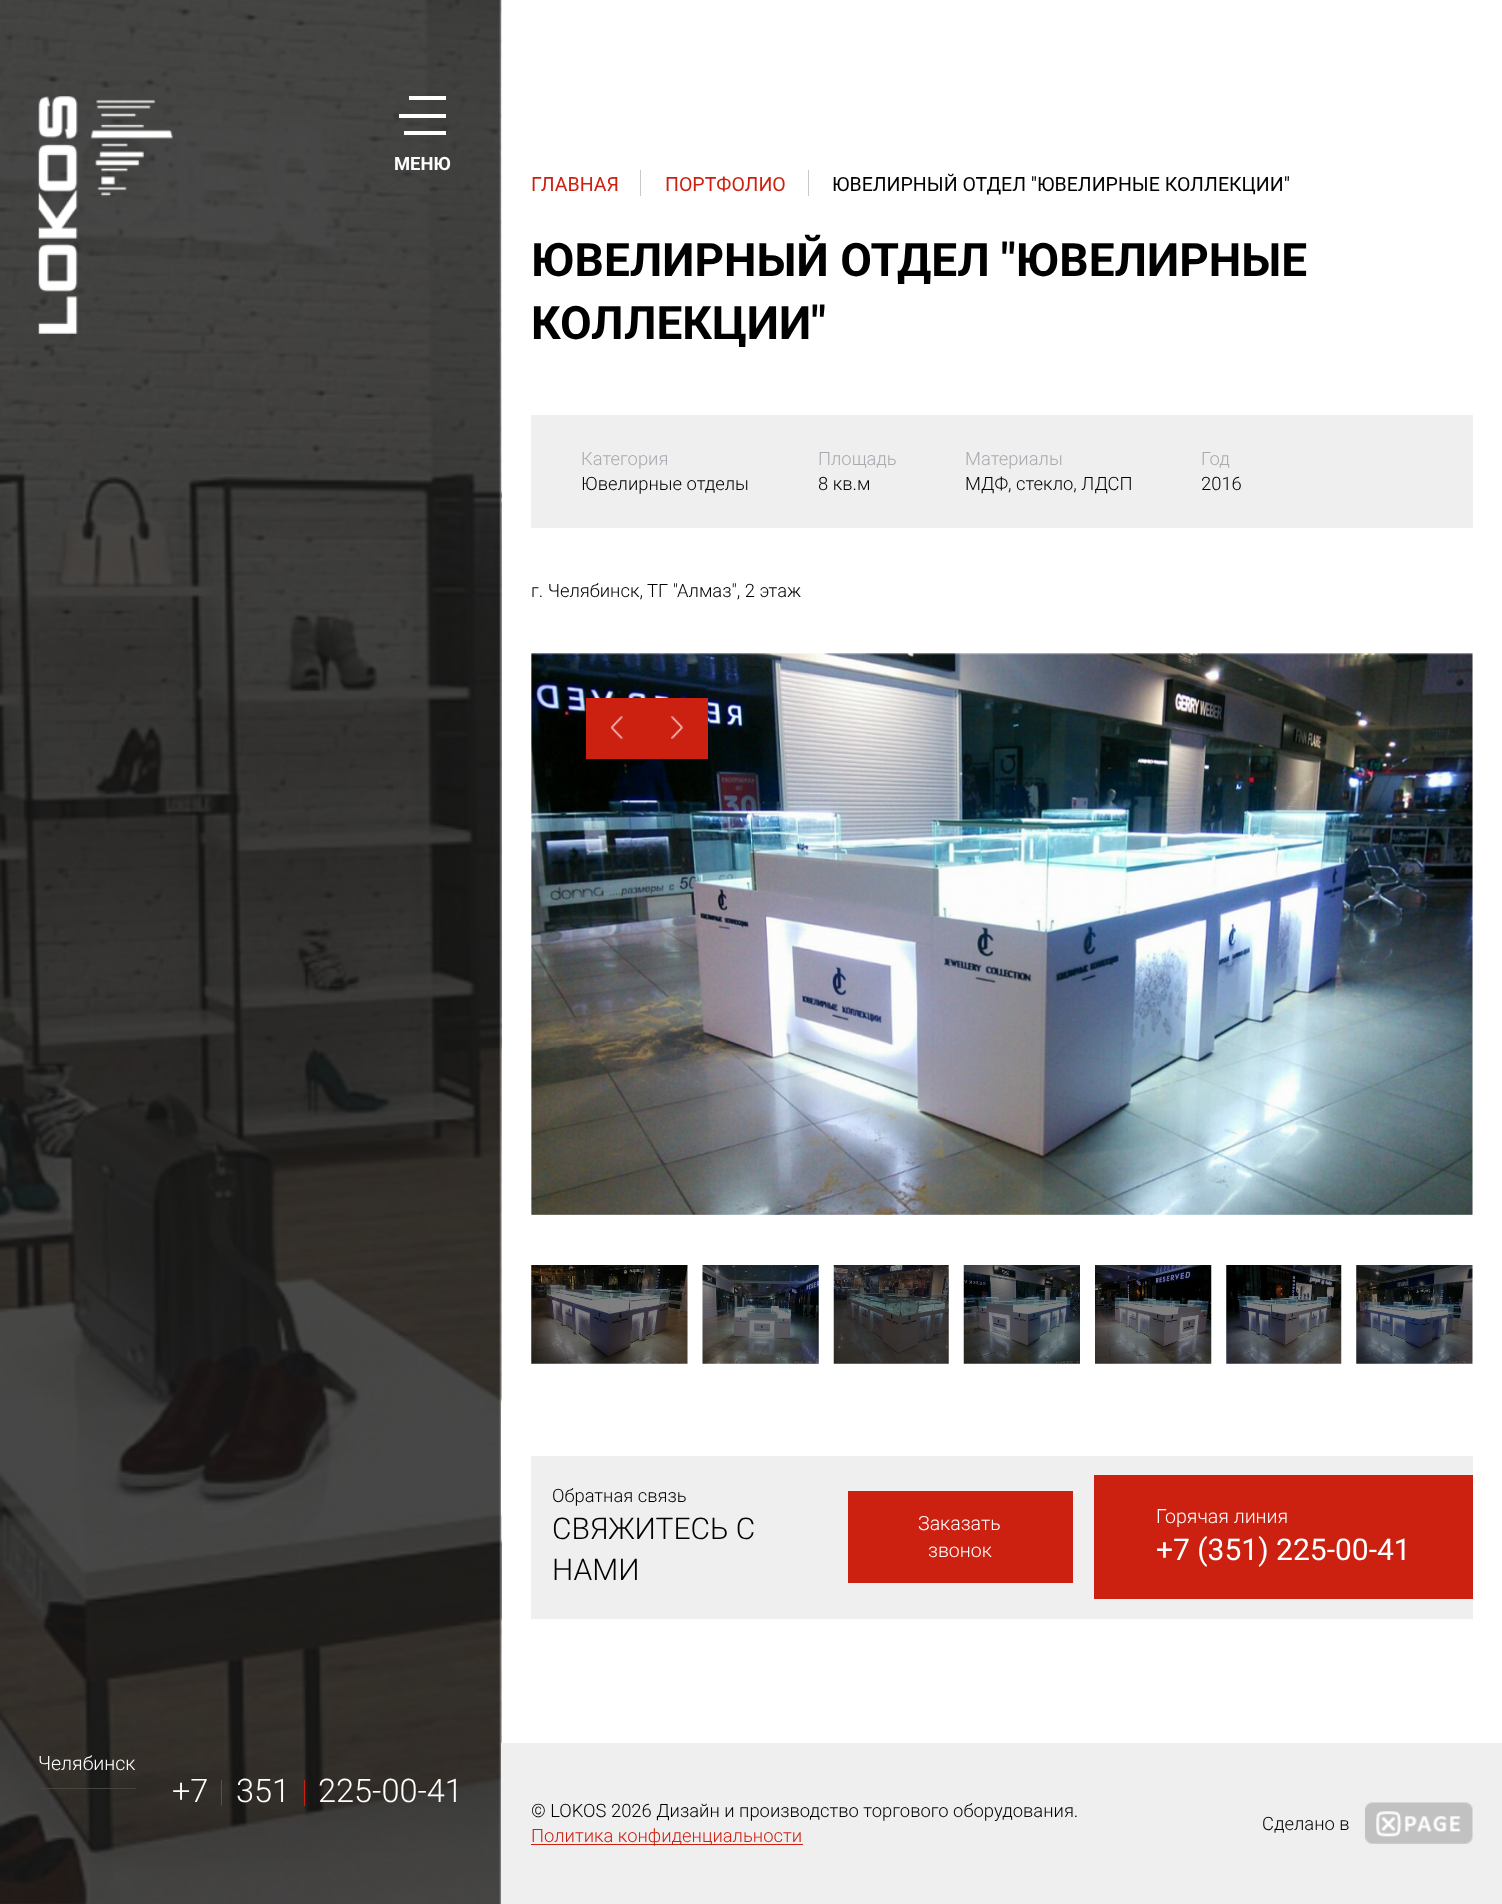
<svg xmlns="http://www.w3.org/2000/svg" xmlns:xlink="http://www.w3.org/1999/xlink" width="1502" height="1904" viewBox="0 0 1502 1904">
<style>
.cls-1{font:bold 18.4px Roboto;fill:#ffffff}
.cls-2{font:300 19.55px Roboto;fill:#ffffff}
.cls-3{font:300 32.5px Roboto;fill:#ffffff}
.cls-4{font:19.55px Roboto;fill:#cc2110}
.cls-5{font:19.55px Roboto;fill:#000000}
.cls-6{font:bold 46px Roboto;fill:#000000}
.cls-7{font:300 18.4px Roboto;fill:#a7aaaf}
.cls-8{font:300 18.4px Roboto;fill:#000000}
.cls-9{font:300 30px Roboto;fill:#000000}
.cls-10{font:30px Roboto;fill:#ffffff}
.cls-11{font:300 18.4px Roboto;fill:#cc2110}
</style>
<rect width="100%" height="100%" fill="#ffffff"/>
<image xlink:href="image0.png" x="0" y="0" width="502" height="1904"/>
<image xlink:href="image1.png" x="38" y="96" width="135" height="238"/>
<rect fill="#ffffff" x="409" y="96" width="37" height="4"/>
<rect fill="#ffffff" x="399" y="114" width="47" height="4"/>
<rect fill="#ffffff" x="404" y="131" width="42" height="4"/>
<rect fill="#464541" x="39" y="1788" width="97" height="1"/>
<rect fill="#cc2110" x="221" y="1780" width="1" height="26"/>
<rect fill="#cc2110" x="304" y="1780" width="1" height="26"/>
<rect fill="#c9c9c9" x="640" y="170" width="1" height="26"/>
<rect fill="#c9c9c9" x="808" y="170" width="1" height="26"/>
<rect fill="#efefef" x="531" y="415" width="942" height="113"/>
<image xlink:href="image2.png" x="531" y="653" width="942" height="562"/>
<rect fill="#cc2110" x="586" y="698" width="122" height="61"/>
<image xlink:href="image3.png" x="611" y="716" width="12" height="23"/>
<image xlink:href="image4.png" x="671" y="716" width="12" height="23"/>
<image xlink:href="image5.png" x="531" y="1265" width="157" height="99"/>
<image xlink:href="image6.png" x="702" y="1265" width="117" height="99"/>
<image xlink:href="image7.png" x="833" y="1265" width="116" height="99"/>
<image xlink:href="image8.png" x="963" y="1265" width="117" height="99"/>
<image xlink:href="image9.png" x="1095" y="1265" width="117" height="99"/>
<image xlink:href="image10.png" x="1226" y="1265" width="116" height="99"/>
<image xlink:href="image11.png" x="1356" y="1265" width="117" height="99"/>
<rect fill="#efefef" x="531" y="1456" width="942" height="163"/>
<rect fill="#cc2110" x="848" y="1491" width="225" height="92"/>
<rect fill="#cc2110" x="1094" y="1475" width="379" height="124"/>
<rect fill="#efefef" x="501" y="1743" width="1001" height="161"/>
<rect fill="#cc2110" x="531" y="1844" width="272" height="1"/>
<image xlink:href="image12.png" x="1365" y="1802" width="108" height="42"/>
<text class="cls-1" x="394" y="170">МЕНЮ</text>
<text class="cls-2" x="38" y="1770">Челябинск</text>
<text class="cls-3" x="172" y="1802">+7</text>
<text class="cls-3" x="236" y="1802">351</text>
<text class="cls-3" x="318" y="1802">225-00-41</text>
<text class="cls-4" x="531" y="191">ГЛАВНАЯ</text>
<text class="cls-4" x="665" y="191">ПОРТФОЛИО</text>
<text class="cls-5" x="832" y="191">ЮВЕЛИРНЫЙ ОТДЕЛ "ЮВЕЛИРНЫЕ КОЛЛЕКЦИИ"</text>
<text class="cls-6"><tspan x="531" y="276">ЮВЕЛИРНЫЙ ОТДЕЛ "ЮВЕЛИРНЫЕ</tspan><tspan x="531" y="339">КОЛЛЕКЦИИ"</tspan></text>
<text class="cls-7" x="581" y="465">Категория</text>
<text class="cls-8" x="581" y="490">Ювелирные отделы</text>
<text class="cls-7" x="818" y="465">Площадь</text>
<text class="cls-8" x="818" y="490">8 кв.м</text>
<text class="cls-7" x="965" y="465">Материалы</text>
<text class="cls-8" x="965" y="490">МДФ, стекло, ЛДСП</text>
<text class="cls-7" x="1201" y="465">Год</text>
<text class="cls-8" x="1201" y="490">2016</text>
<text class="cls-8" x="531" y="597">г. Челябинск, ТГ "Алмаз", 2 этаж</text>
<text class="cls-8" x="552" y="1502">Обратная связь</text>
<text class="cls-9"><tspan x="552" y="1539">СВЯЖИТЕСЬ С</tspan><tspan x="552" y="1580">НАМИ</tspan></text>
<text class="cls-2" x="918" y="1530">Заказать</text>
<text class="cls-2" x="928" y="1557">звонок</text>
<text class="cls-2" x="1156" y="1523">Горячая линия</text>
<text class="cls-10" x="1156" y="1560">+7 (351) 225-00-41</text>
<text class="cls-8" x="531" y="1817">© LOKOS 2026 Дизайн и производство торгового оборудования.</text>
<text class="cls-11" x="531" y="1842">Политика конфиденциальности</text>
<text class="cls-8" x="1262" y="1830">Сделано в</text>
</svg>
